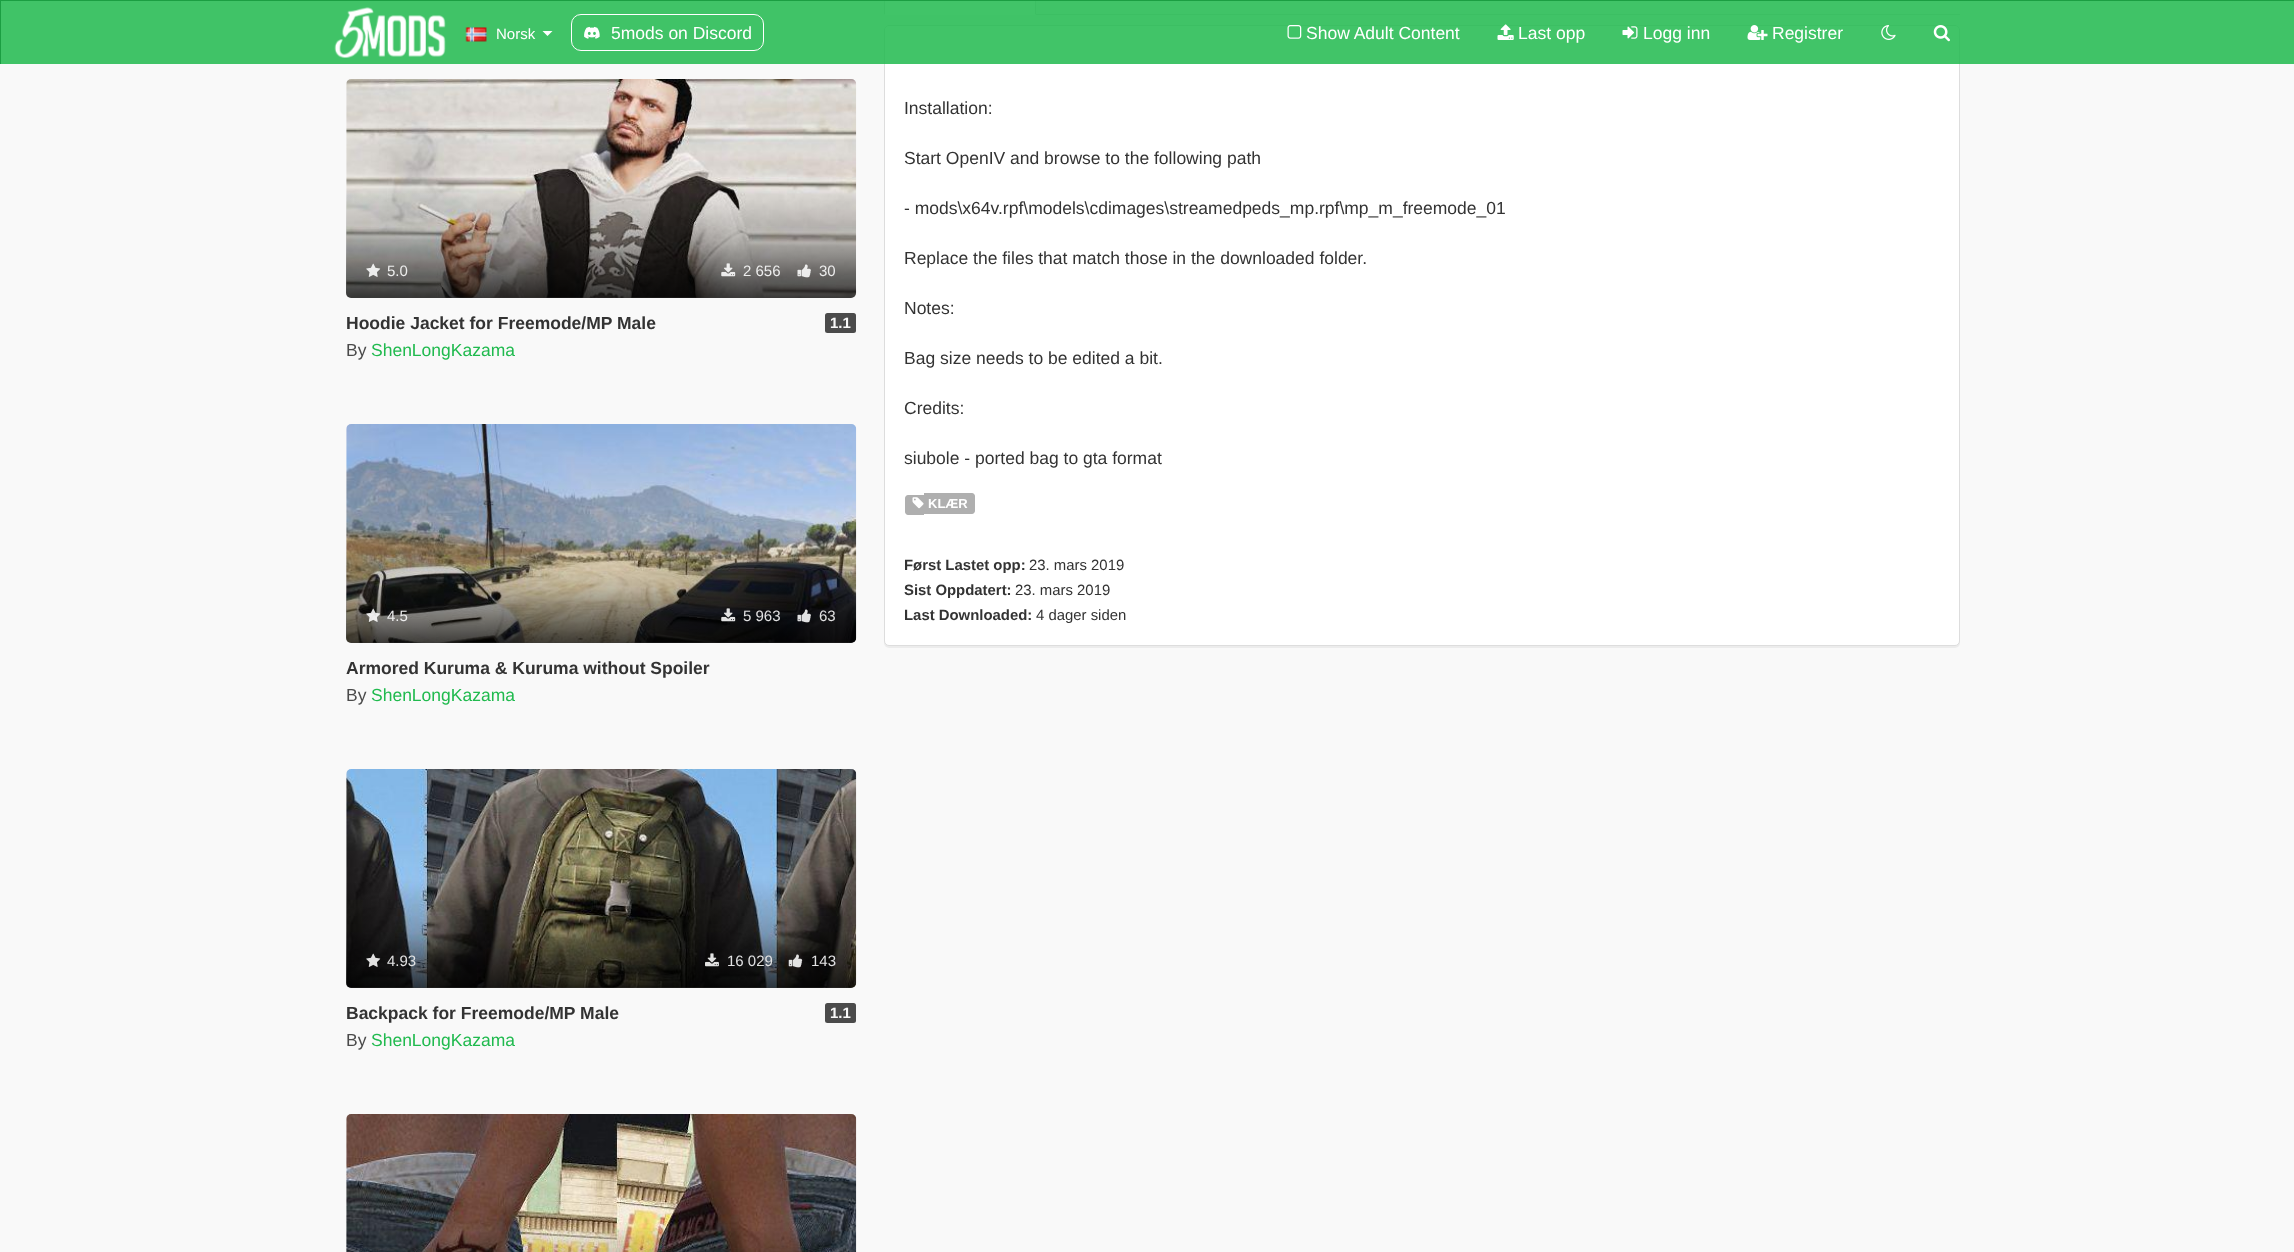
<svg xmlns="http://www.w3.org/2000/svg" xmlns:xlink="http://www.w3.org/1999/xlink" width="2294" height="1252" viewBox="0 0 2294 1252">
<style>
.cls-1{font:15px Liberation Sans;fill:#ffffff}
.cls-2{font:17.5px Liberation Sans;fill:#ffffff}
.cls-3{font:15px Liberation Sans;fill:#ededed}
.cls-4{font:bold 17.5px Liberation Sans;fill:#333333}
.cls-5{font:bold 15px Liberation Sans;fill:#f9f9f9}
.cls-6{font:17.5px Liberation Sans;fill:#4b4b4b}
.cls-7{font:17.5px Liberation Sans;fill:#20ba4e}
.cls-8{font:15px Liberation Sans;fill:#e2e2e3}
.cls-9{font:17.5px Liberation Sans;fill:#333333}
.cls-10{font:bold 13px Liberation Sans;fill:#ffffff}
.cls-11{font:bold 14.9px Liberation Sans;fill:#333333}
.cls-12{font:14.9px Liberation Sans;fill:#333333}
</style>
<defs>
<linearGradient id="g1" gradientUnits="userSpaceOnUse" x1="601" y1="79" x2="601" y2="298"><stop offset="0.5" stop-color="#000000" stop-opacity="0"/><stop offset="0.75" stop-color="#000000" stop-opacity="0.25"/><stop offset="1" stop-color="#000000" stop-opacity="0.75"/></linearGradient>
<linearGradient id="g2" gradientUnits="userSpaceOnUse" x1="601" y1="424" x2="601" y2="643"><stop offset="0.5" stop-color="#000000" stop-opacity="0"/><stop offset="0.75" stop-color="#000000" stop-opacity="0.25"/><stop offset="1" stop-color="#000000" stop-opacity="0.75"/></linearGradient>
<linearGradient id="g3" gradientUnits="userSpaceOnUse" x1="601" y1="769" x2="601" y2="988"><stop offset="0.5" stop-color="#000000" stop-opacity="0"/><stop offset="0.75" stop-color="#000000" stop-opacity="0.25"/><stop offset="1" stop-color="#000000" stop-opacity="0.75"/></linearGradient>
<linearGradient id="g4" gradientUnits="userSpaceOnUse" x1="601" y1="1114" x2="601" y2="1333"><stop offset="0.5" stop-color="#000000" stop-opacity="0"/><stop offset="0.75" stop-color="#000000" stop-opacity="0.25"/><stop offset="1" stop-color="#000000" stop-opacity="0.75"/></linearGradient>
</defs>
<rect width="100%" height="100%" fill="#f9f9f9"/>
<rect fill="#dddddd" x="1036" y="14" width="924" height="1"/>
<rect fill="#ffffff" x="884" y="1" width="152" height="14"/>
<path fill="#dddddd" d="M1035-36C1036-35 1036-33 1036-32V15L1035 14V-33L1034-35Z"/>
<path fill="#dddddd" d="M884 15V-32C884-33 884-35 885-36L886-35L885-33V14Z"/>
<rect fill="#000000" fill-opacity="0.05" filter="blur(0.5px)" x="884" y="26" width="1076" height="622" rx="5"/>
<rect fill="#ffffff" stroke="#dddddd" x="884.5" y="25.5" width="1075" height="620" rx="4.5"/>
<rect fill="#20ba4e" fill-opacity="0.85" x="1" y="1" width="2293" height="63"/>
<rect fill="#1b9e42" x="0" y="0" width="2294" height="1"/>
<rect fill="#1b9e42" x="0" y="0" width="1" height="64"/>
<image xlink:href="image0.png" x="334" y="7" width="112" height="51"/>
<image xlink:href="image1.png" x="465" y="27" width="22" height="15"/>
<path fill="#ffffff" d="M542.5 31H552.5L547.5 36Z"/>
<rect fill="none" stroke="#ffffff" x="571.5" y="14.5" width="192" height="36" rx="9.5"/>
<image xlink:href="image2.png" x="584" y="26" width="16" height="13"/>
<image xlink:href="image3.png" x="1287" y="25" width="15" height="14"/>
<image xlink:href="image4.png" x="1497" y="24" width="17" height="16"/>
<image xlink:href="image5.png" x="1622" y="26" width="16" height="13"/>
<image xlink:href="image6.png" x="1747" y="25" width="21" height="15"/>
<image xlink:href="image7.png" x="1881" y="25" width="15" height="15"/>
<image xlink:href="image8.png" x="1933" y="25" width="17" height="17"/>
<image xlink:href="image9.png" x="346" y="79" width="511" height="219"/>
<rect fill="url(#g1)" x="346" y="79" width="510" height="219" rx="5"/>
<image xlink:href="image10.png" x="366" y="263" width="15" height="14"/>
<image xlink:href="image11.png" x="721" y="263" width="15" height="14"/>
<image xlink:href="image12.png" x="797" y="264" width="14" height="14"/>
<rect fill="#4b4b4b" x="825" y="313" width="31" height="20" rx="2.5"/>
<image xlink:href="image13.png" x="346" y="424" width="511" height="219"/>
<rect fill="url(#g2)" x="346" y="424" width="510" height="219" rx="5"/>
<image xlink:href="image14.png" x="366" y="608" width="15" height="14"/>
<image xlink:href="image15.png" x="721" y="608" width="15" height="14"/>
<image xlink:href="image16.png" x="797" y="609" width="14" height="14"/>
<image xlink:href="image17.png" x="346" y="769" width="511" height="219"/>
<rect fill="url(#g3)" x="346" y="769" width="510" height="219" rx="5"/>
<image xlink:href="image18.png" x="366" y="953" width="15" height="14"/>
<image xlink:href="image19.png" x="705" y="953" width="14" height="14"/>
<image xlink:href="image20.png" x="788" y="954" width="15" height="14"/>
<rect fill="#4b4b4b" x="825" y="1003" width="31" height="20" rx="2.5"/>
<image xlink:href="image21.png" x="346" y="1114" width="511" height="138"/>
<rect fill="url(#g4)" x="346" y="1228" width="510" height="24"/>
<path fill="#afafaf" d="M908 495H924V515H908C906.5 515 905 513.5 905 512V498C905 496.5 906.5 495 908 495Z"/>
<path fill="#afafaf" d="M924 493H972C973.5 493 975 494.5 975 496V511C975 512.5 973.5 514 972 514H924Z"/>
<image xlink:href="image22.png" x="912" y="497" width="12" height="12"/>
<text class="cls-1" x="496" y="39">Norsk</text>
<text class="cls-2" x="611" y="39">5mods on Discord</text>
<text class="cls-2" x="1306" y="39">Show Adult Content</text>
<text class="cls-2" x="1518" y="39">Last opp</text>
<text class="cls-2" x="1643" y="39">Logg inn</text>
<text class="cls-2" x="1772" y="39">Registrer</text>
<text class="cls-3" x="387" y="276">5.0</text>
<text class="cls-3" x="743" y="276">2 656</text>
<text class="cls-3" x="819" y="276">30</text>
<text class="cls-4" x="346" y="329">Hoodie Jacket for Freemode/MP Male</text>
<text class="cls-5" x="830" y="328">1.1</text>
<text class="cls-6" x="346" y="356">By</text>
<text class="cls-7" x="371" y="356">ShenLongKazama</text>
<text class="cls-3" x="387" y="621">4.5</text>
<text class="cls-8" x="743" y="621">5 963</text>
<text class="cls-8" x="819" y="621">63</text>
<text class="cls-4" x="346" y="674">Armored Kuruma &amp; Kuruma without Spoiler</text>
<text class="cls-6" x="346" y="701">By</text>
<text class="cls-7" x="371" y="701">ShenLongKazama</text>
<text class="cls-8" x="387" y="966">4.93</text>
<text class="cls-8" x="727" y="966">16 029</text>
<text class="cls-8" x="811" y="966">143</text>
<text class="cls-4" x="346" y="1019">Backpack for Freemode/MP Male</text>
<text class="cls-5" x="830" y="1018">1.1</text>
<text class="cls-6" x="346" y="1046">By</text>
<text class="cls-7" x="371" y="1046">ShenLongKazama</text>
<text class="cls-9" x="904" y="114">Installation:</text>
<text class="cls-9" x="904" y="164">Start OpenIV and browse to the following path</text>
<text class="cls-9" x="904" y="214">- mods\x64v.rpf\models\cdimages\streamedpeds_mp.rpf\mp_m_freemode_01</text>
<text class="cls-9" x="904" y="264">Replace the files that match those in the downloaded folder.</text>
<text class="cls-9" x="904" y="314">Notes:</text>
<text class="cls-9" x="904" y="364">Bag size needs to be edited a bit.</text>
<text class="cls-9" x="904" y="414">Credits:</text>
<text class="cls-9" x="904" y="464">siubole - ported bag to gta format</text>
<text class="cls-10" x="928" y="508">KLÆR</text>
<text class="cls-11" x="904" y="570">Først Lastet opp:</text>
<text class="cls-12" x="1029" y="570">23. mars 2019</text>
<text class="cls-11" x="904" y="595">Sist Oppdatert:</text>
<text class="cls-12" x="1015" y="595">23. mars 2019</text>
<text class="cls-11" x="904" y="620">Last Downloaded:</text>
<text class="cls-12" x="1036" y="620">4 dager siden</text>
</svg>
